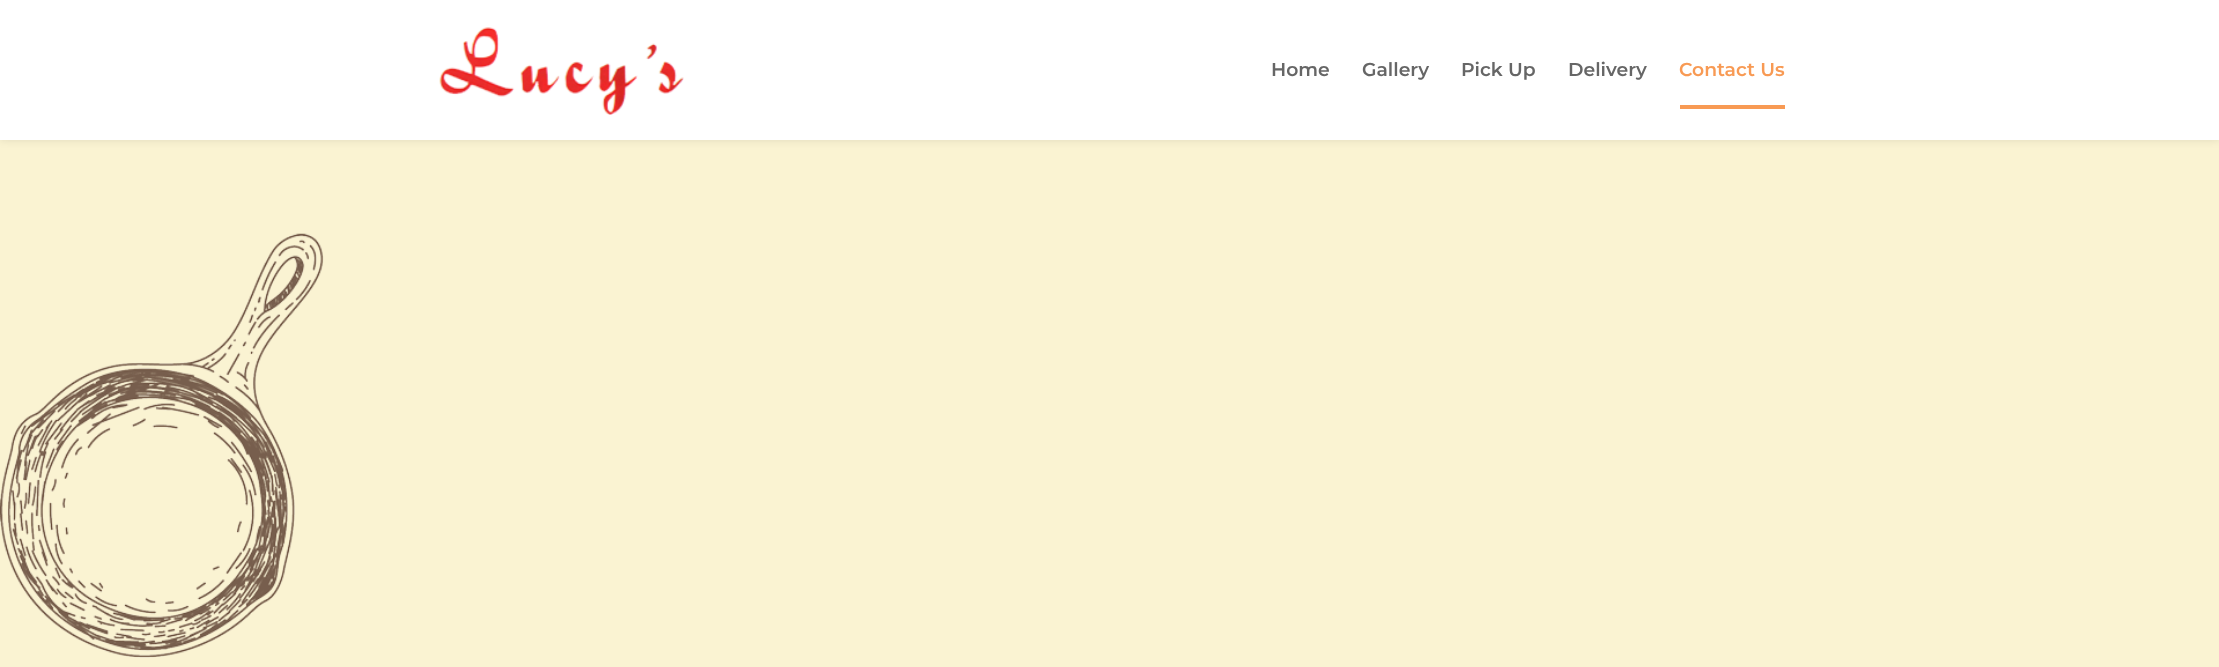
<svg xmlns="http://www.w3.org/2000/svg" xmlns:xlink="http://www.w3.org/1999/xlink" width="2219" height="667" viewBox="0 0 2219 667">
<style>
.cls-1{font:100 18.75px Montserrat;fill:#666666}
.cls-2{font:100 18.75px Montserrat;fill:#f89a54}
</style>
<rect width="100%" height="100%" fill="#faf3d2"/>
<rect fill="#000000" fill-opacity="0.1" filter="blur(4.5px)" x="0" y="0" width="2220" height="140"/>
<rect fill="#ffffff" x="0" y="0" width="2219" height="140"/>
<image xlink:href="image0.png" x="439" y="27" width="245" height="88"/>
<rect fill="#f89a54" x="1680" y="105" width="105" height="4"/>
<image xlink:href="image1.png" x="0" y="233" width="324" height="425"/>
<text class="cls-1" x="1271" y="76">Home</text>
<text class="cls-1" x="1362" y="76">Gallery</text>
<text class="cls-1" x="1461" y="76">Pick Up</text>
<text class="cls-1" x="1568" y="76">Delivery</text>
<text class="cls-2" x="1679" y="76">Contact Us</text>
</svg>
